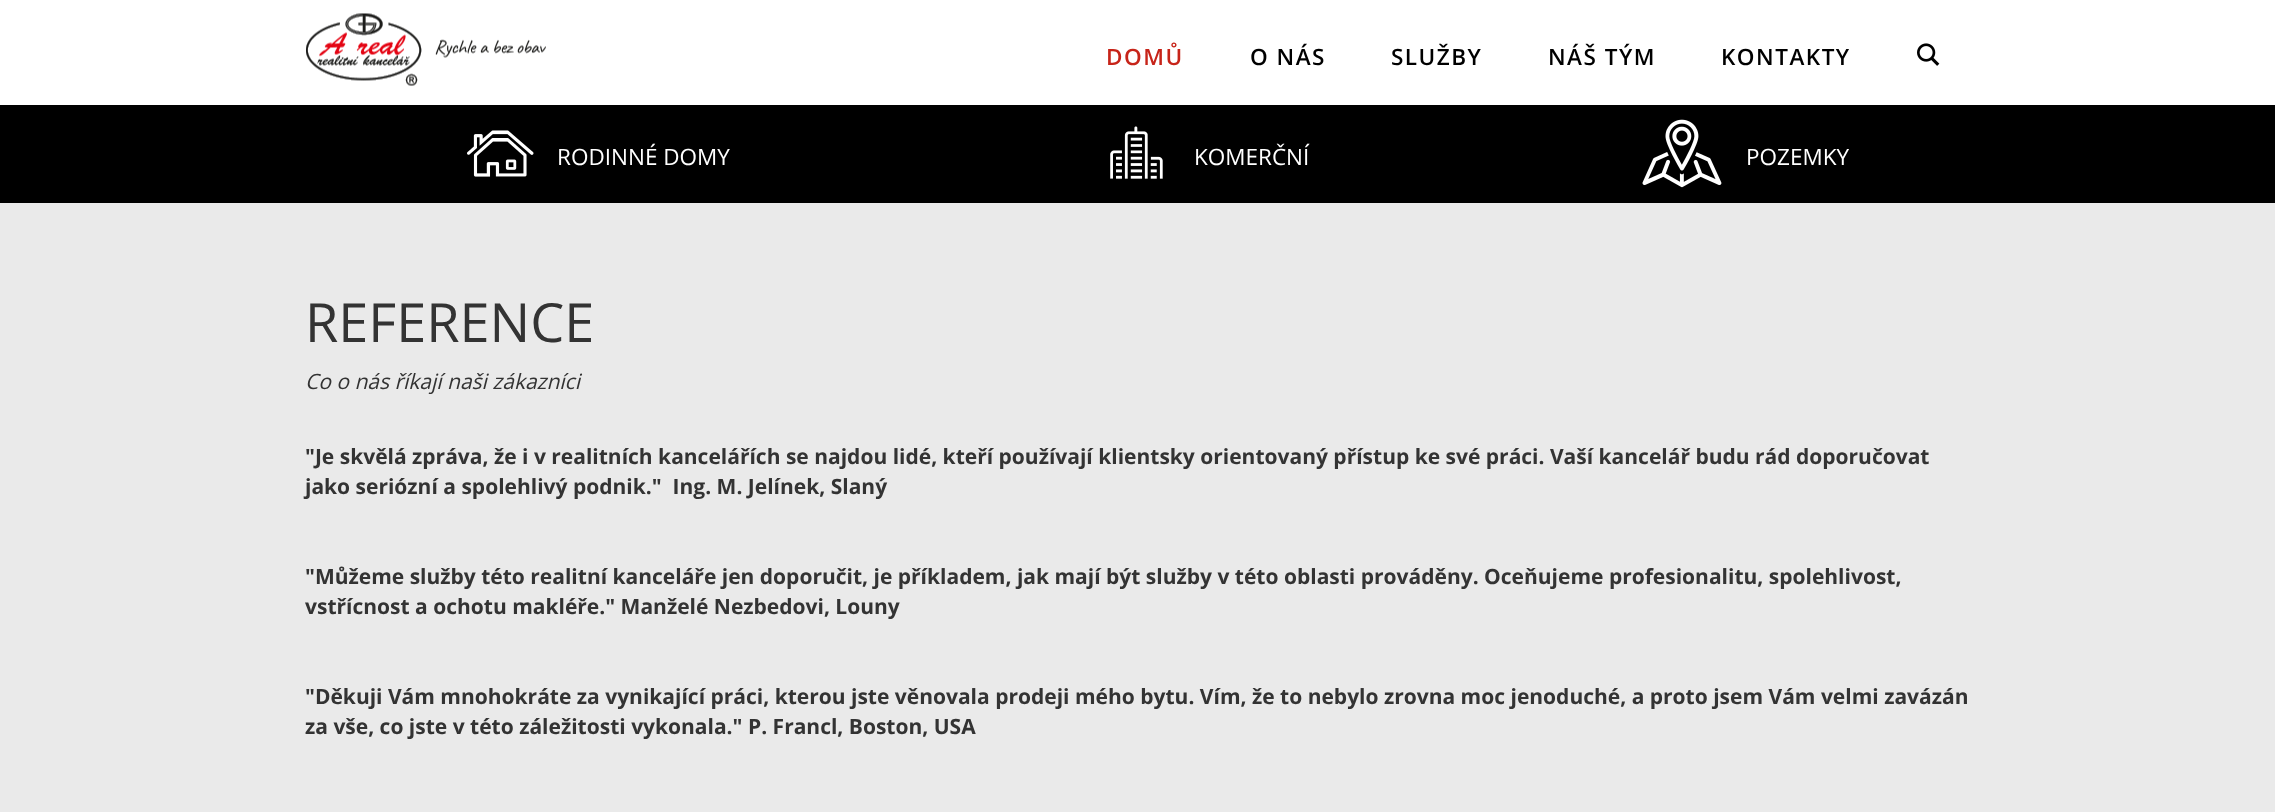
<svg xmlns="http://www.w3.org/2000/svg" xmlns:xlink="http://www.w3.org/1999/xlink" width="2275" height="812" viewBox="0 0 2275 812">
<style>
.cls-1{font:600 22.5px Open Sans;letter-spacing:1.5px;fill:#c72419}
.cls-2{font:600 22.5px Open Sans;letter-spacing:1.5px;fill:#000000}
.cls-3{font:22.5px Open Sans;fill:#ffffff}
.cls-4{font:54px Open Sans;fill:#333333}
.cls-5{font:italic 21px Open Sans;fill:#333333}
.cls-6{font:bold 21px Open Sans;fill:#333333}
</style>
<rect width="100%" height="100%" fill="#ffffff"/>
<image xlink:href="image0.png" x="306" y="13" width="240" height="73"/>
<image xlink:href="image1.png" x="1917" y="43" width="23" height="23"/>
<rect fill="#000000" x="0" y="105" width="2275" height="98"/>
<image xlink:href="image2.png" x="467" y="130" width="67" height="47"/>
<image xlink:href="image3.png" x="1110" y="126" width="53" height="53"/>
<image xlink:href="image4.png" x="1642" y="119" width="80" height="69"/>
<rect fill="#eaeaea" x="0" y="203" width="2275" height="609"/>
<text class="cls-1" x="1106" y="65">DOMŮ</text>
<text class="cls-2" x="1250" y="65">O NÁS</text>
<text class="cls-2" x="1391" y="65">SLUŽBY</text>
<text class="cls-2" x="1548" y="65">NÁŠ TÝM</text>
<text class="cls-2" x="1721" y="65">KONTAKTY</text>
<text class="cls-3" x="557" y="165">RODINNÉ DOMY</text>
<text class="cls-3" x="1194" y="165">KOMERČNÍ</text>
<text class="cls-3" x="1746" y="165">POZEMKY</text>
<text class="cls-4" x="305" y="342">REFERENCE</text>
<text class="cls-5" x="305" y="389">Co o nás říkají naši zákazníci</text>
<text class="cls-6" xml:space="preserve"><tspan x="305" y="464">"Je skvělá zpráva, že i v realitních kancelářích se najdou lidé, kteří používají klientsky orientovaný přístup ke své práci. Vaší kancelář budu rád doporučovat</tspan><tspan x="305" y="494">jako seriózní a spolehlivý podnik."  Ing. M. Jelínek, Slaný</tspan></text>
<text class="cls-6"><tspan x="305" y="584">"Můžeme služby této realitní kanceláře jen doporučit, je příkladem, jak mají být služby v této oblasti prováděny. Oceňujeme profesionalitu, spolehlivost,</tspan><tspan x="305" y="614">vstřícnost a ochotu makléře." Manželé Nezbedovi, Louny</tspan></text>
<text class="cls-6"><tspan x="305" y="704">"Děkuji Vám mnohokráte za vynikající práci, kterou jste věnovala prodeji mého bytu. Vím, že to nebylo zrovna moc jenoduché, a proto jsem Vám velmi zavázán</tspan><tspan x="305" y="734">za vše, co jste v této záležitosti vykonala." P. Francl, Boston, USA</tspan></text>
</svg>
